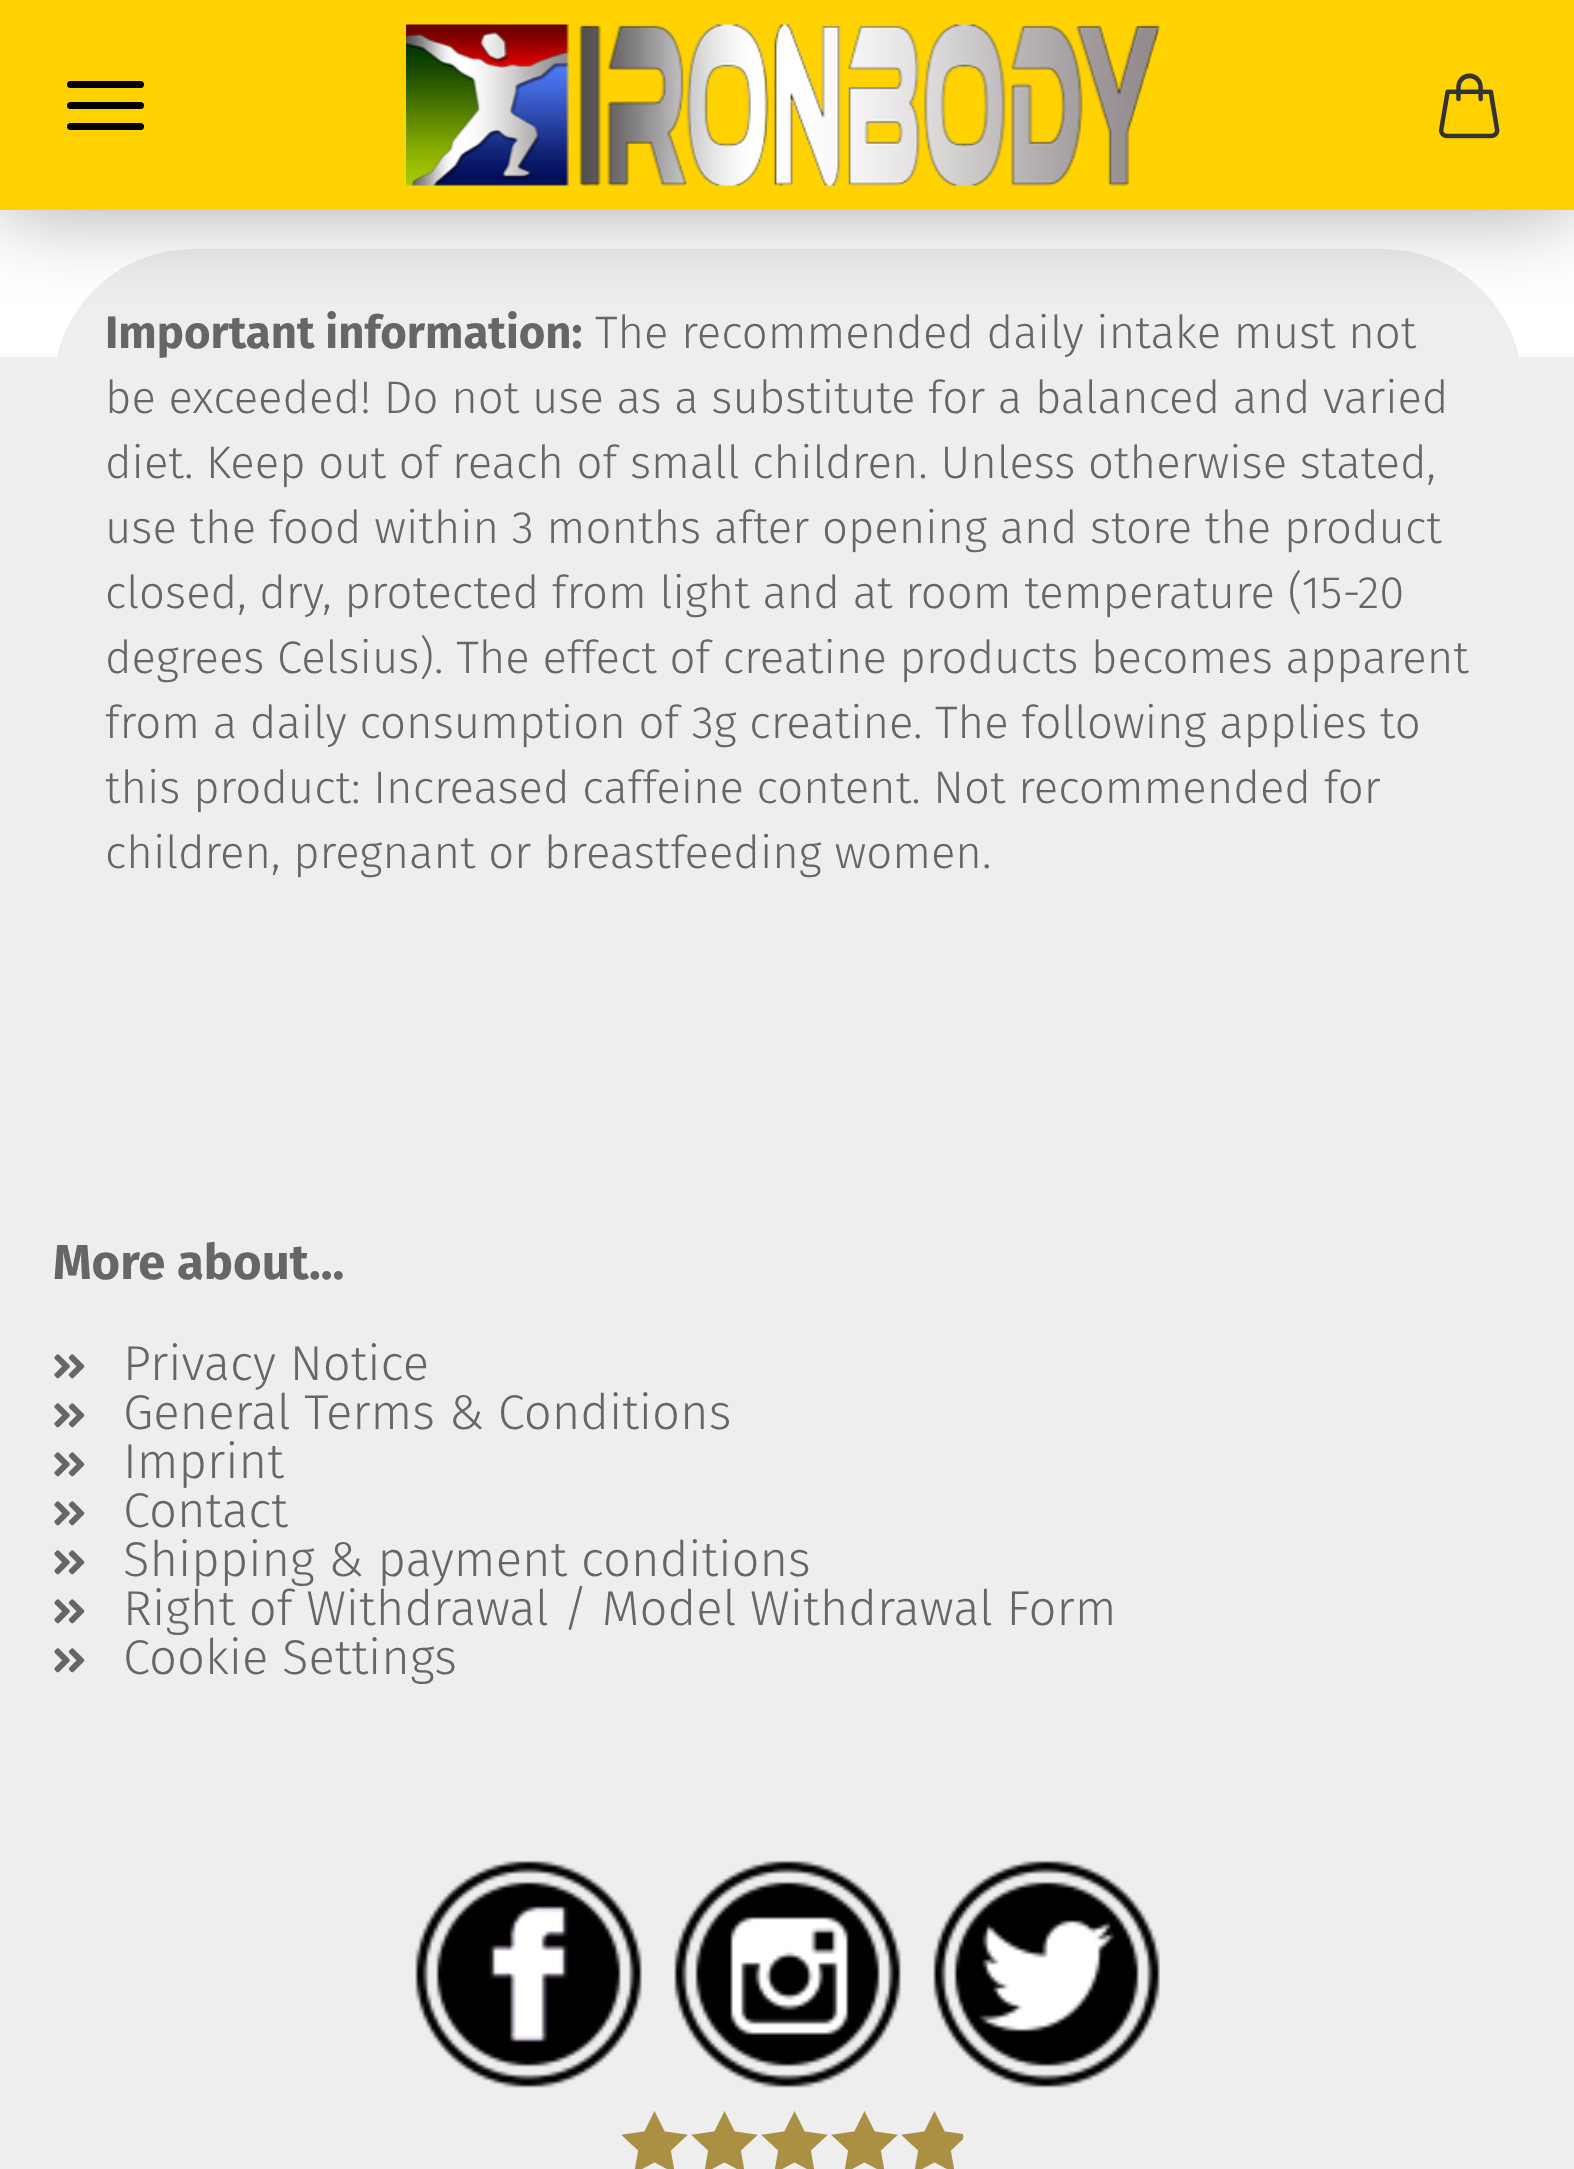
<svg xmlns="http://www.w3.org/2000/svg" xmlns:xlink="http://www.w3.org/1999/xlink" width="1574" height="2169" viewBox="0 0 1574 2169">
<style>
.cls-1{font:bold 45.5px Fira Sans;fill:#666666}
.cls-2{font:300 45.5px Fira Sans;fill:#666666}
.cls-3{font:bold 49px Fira Sans;fill:#666666}
.cls-4{font:300 49px Fira Sans;fill:#666666}
</style>
<defs>
<clipPath id="clip1"><rect x="893" y="2100" width="70" height="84"/></clipPath>
</defs>
<rect width="100%" height="100%" fill="#ffffff"/>
<rect fill="#eeeeee" x="0" y="357" width="1574" height="1812"/>
<rect fill="#eeeeee" x="53" y="249" width="1470" height="721" rx="140"/>
<rect fill="#000000" fill-opacity="0.35" filter="blur(44px)" x="0" y="0" width="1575" height="210"/>
<rect fill="#ffd200" x="0" y="0" width="1574" height="210"/>
<image xlink:href="image0.png" x="406" y="24" width="754" height="162"/>
<image xlink:href="image1.png" x="1438" y="73" width="62" height="66"/>
<rect fill="#000000" x="67" y="102" width="77" height="7" rx="3.5"/>
<rect fill="#000000" x="67" y="81" width="77" height="7" rx="3.5"/>
<rect fill="#000000" x="67" y="123" width="77" height="7" rx="3.5"/>
<image xlink:href="image2.png" x="54" y="1354" width="31" height="25"/>
<image xlink:href="image2.png" x="54" y="1403" width="31" height="25"/>
<image xlink:href="image2.png" x="54" y="1452" width="31" height="25"/>
<image xlink:href="image2.png" x="54" y="1501" width="31" height="25"/>
<image xlink:href="image2.png" x="54" y="1550" width="31" height="25"/>
<image xlink:href="image2.png" x="54" y="1599" width="31" height="25"/>
<image xlink:href="image2.png" x="54" y="1648" width="31" height="25"/>
<image xlink:href="image3.png" x="415" y="1860" width="227" height="228"/>
<image xlink:href="image4.png" x="674" y="1860" width="227" height="228"/>
<image xlink:href="image5.png" x="933" y="1860" width="227" height="228"/>
<path fill="#ab9044" d="M663 2132L664 2133L684 2136L669 2150L673 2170L654 2160L636 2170L640 2150L625 2136L645 2133L654 2115Z"/>
<path fill="none" stroke="#ab9044" stroke-width="3.5" d="M663 2132L663.5 2133L684 2136L669 2150L672.5 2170L654.5 2160.5L636.5 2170L640 2150L625 2136L645.5 2133L654.5 2115Z"/>
<path fill="#ab9044" d="M733 2132L734 2133L754 2136L739 2150L743 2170L724 2160L706 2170L710 2150L695 2136L715 2133L724 2115Z"/>
<path fill="none" stroke="#ab9044" stroke-width="3.5" d="M733 2132L733.5 2133L754 2136L739 2150L742.5 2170L724.5 2160.5L706.5 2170L710 2150L695 2136L715.5 2133L724.5 2115Z"/>
<path fill="#ab9044" d="M803 2132L804 2133L824 2136L809 2150L813 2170L794 2160L776 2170L780 2150L765 2136L785 2133L794 2115Z"/>
<path fill="none" stroke="#ab9044" stroke-width="3.5" d="M803 2132L803.5 2133L824 2136L809 2150L812.5 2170L794.5 2160.5L776.5 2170L780 2150L765 2136L785.5 2133L794.5 2115Z"/>
<path fill="#ab9044" d="M873 2132L874 2133L894 2136L879 2150L883 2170L864 2160L846 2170L850 2150L835 2136L855 2133L864 2115Z"/>
<path fill="none" stroke="#ab9044" stroke-width="3.5" d="M873 2132L873.5 2133L894 2136L879 2150L882.5 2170L864.5 2160.5L846.5 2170L850 2150L835 2136L855.5 2133L864.5 2115Z"/>
<path fill="#ab9044" d="M943 2132L944 2133L964 2136L949 2150L953 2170L934 2160L916 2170L920 2150L905 2136L925 2133L934 2115Z"/>
<g clip-path="url(#clip1)">
<path fill="none" stroke="#ab9044" stroke-width="3.5" d="M943 2132L943.5 2133L964 2136L949 2150L952.5 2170L934.5 2160.5L916.5 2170L920 2150L905 2136L925.5 2133L934.5 2115Z"/>
</g>
<text class="cls-1" x="105" y="348">Important information:</text>
<text class="cls-2" x="595" y="348">The recommended daily intake must not</text>
<text class="cls-2"><tspan x="105" y="413">be exceeded! Do not use as a substitute for a balanced and varied</tspan><tspan x="105" y="478">diet. Keep out of reach of small children. Unless otherwise stated,</tspan><tspan x="105" y="543">use the food within 3 months after opening and store the product</tspan><tspan x="105" y="608">closed, dry, protected from light and at room temperature (15-20</tspan><tspan x="105" y="673">degrees Celsius). The effect of creatine products becomes apparent</tspan><tspan x="105" y="738">from a daily consumption of 3g creatine. The following applies to</tspan><tspan x="105" y="803">this product: Increased caffeine content. Not recommended for</tspan><tspan x="105" y="868">children, pregnant or breastfeeding women.</tspan></text>
<text class="cls-3" x="53" y="1279">More about...</text>
<text class="cls-4"><tspan x="123" y="1380">Privacy Notice</tspan><tspan x="123" y="1429">General Terms &amp; Conditions</tspan><tspan x="123" y="1478">Imprint</tspan><tspan x="123" y="1527">Contact</tspan><tspan x="123" y="1576">Shipping &amp; payment conditions</tspan><tspan x="123" y="1625">Right of Withdrawal / Model Withdrawal Form</tspan><tspan x="123" y="1674">Cookie Settings</tspan></text>
</svg>
